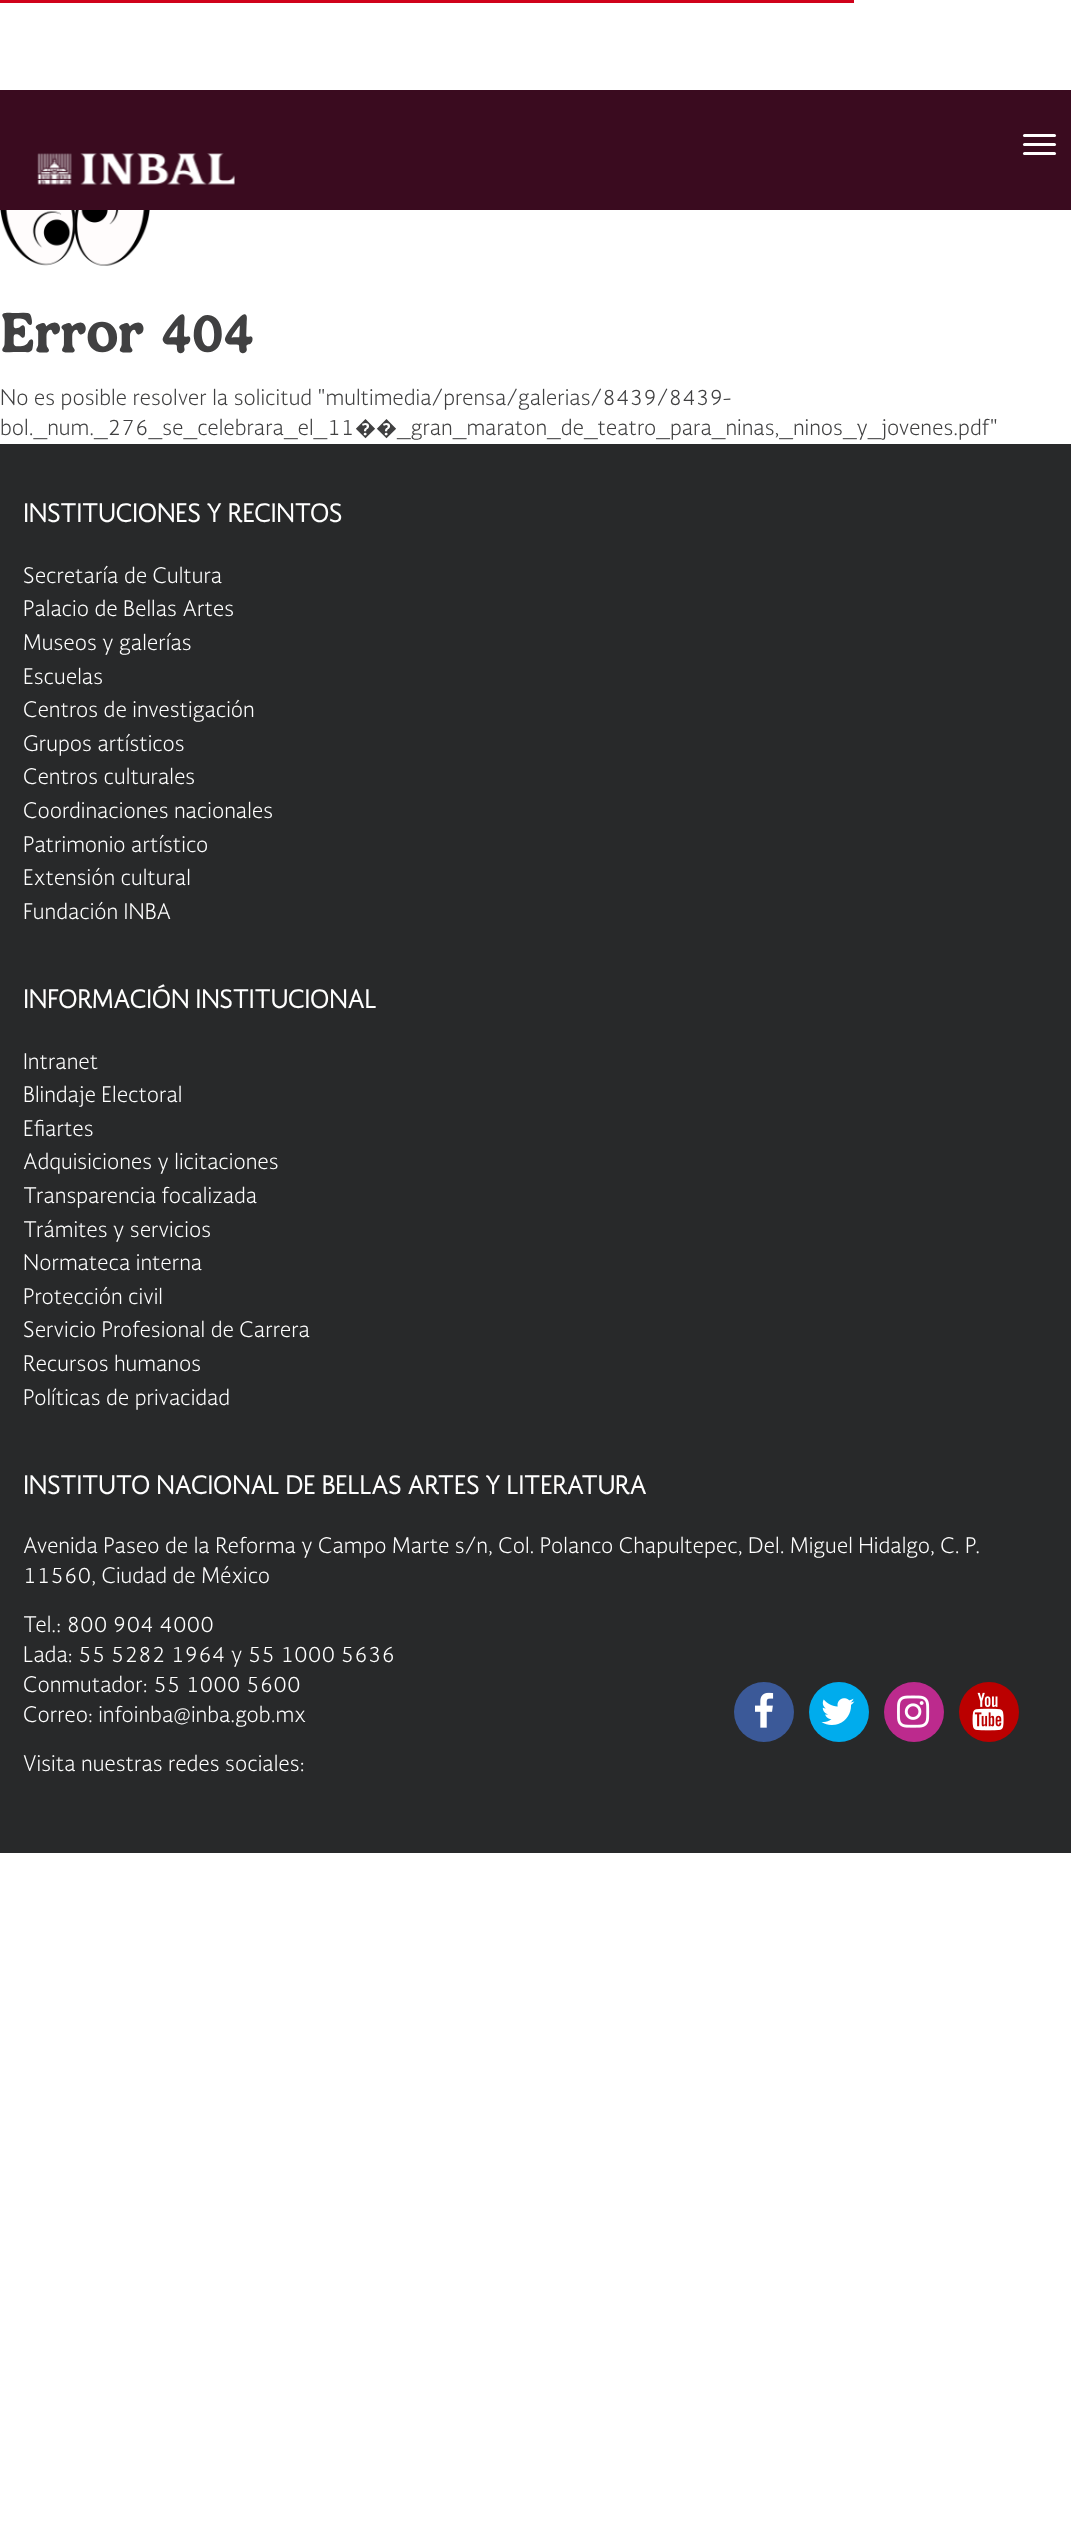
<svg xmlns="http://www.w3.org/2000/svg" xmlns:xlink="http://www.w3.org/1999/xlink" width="1071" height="2539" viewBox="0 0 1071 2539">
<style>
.cls-1{font:bold 57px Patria;fill:#404041}
.cls-2{font:300 21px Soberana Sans;fill:#404041}
.cls-3{font:300 21px Noto Sans;fill:#404041}
.cls-4{font:bold 24px Soberana Sans;fill:#ffffff}
.cls-5{font:300 21px Soberana Sans;fill:#ffffff}
</style>
<rect width="100%" height="100%" fill="#ffffff"/>
<rect fill="#d0021b" x="0" y="0" width="854" height="3"/>
<rect fill="#3a0b1f" x="0" y="90" width="1071" height="120"/>
<rect fill="#ffffff" x="1023" y="134" width="33" height="3" rx="1.5"/>
<rect fill="#ffffff" x="1023" y="143" width="33" height="3" rx="1.5"/>
<rect fill="#ffffff" x="1023" y="152" width="33" height="3" rx="1.5"/>
<image xlink:href="image0.png" x="37" y="153" width="198" height="32"/>
<image xlink:href="image1.png" x="0" y="210" width="150" height="56"/>
<rect fill="#28292a" x="0" y="444" width="1071" height="1409"/>
<circle fill="#3b5998" cx="764" cy="1712" r="30"/>
<image xlink:href="image2.png" x="755" y="1692" width="19" height="36"/>
<circle fill="#00aced" cx="839" cy="1712" r="30"/>
<image xlink:href="image3.png" x="821" y="1698" width="34" height="27"/>
<circle fill="#bc2a8d" cx="914" cy="1712" r="30"/>
<image xlink:href="image4.png" x="897" y="1695" width="33" height="33"/>
<circle fill="#bb0000" cx="989" cy="1712" r="30"/>
<image xlink:href="image5.png" x="972" y="1692" width="32" height="39"/>
<text class="cls-1" x="0" y="352">Error 404</text>
<text class="cls-2"><tspan x="0" y="405">No es posible resolver la solicitud "multimedia/prensa/galerias/8439/8439-</tspan><tspan x="0" y="435">bol._num._276_se_celebrara_el_11</tspan></text>
<text class="cls-3" x="355" y="435">��</text>
<text class="cls-2" x="397" y="435">_gran_maraton_de_teatro_para_ninas,_ninos_y_jovenes.pdf"</text>
<text class="cls-4" x="23" y="522">INSTITUCIONES Y RECINTOS</text>
<text class="cls-5"><tspan x="23" y="583">Secretaría de Cultura</tspan><tspan x="23" y="616">Palacio de Bellas Artes</tspan><tspan x="23" y="650">Museos y galerías</tspan><tspan x="23" y="684">Escuelas</tspan><tspan x="23" y="717">Centros de investigación</tspan><tspan x="23" y="751">Grupos artísticos</tspan><tspan x="23" y="784">Centros culturales</tspan><tspan x="23" y="818">Coordinaciones nacionales</tspan><tspan x="23" y="852">Patrimonio artístico</tspan><tspan x="23" y="885">Extensión cultural</tspan><tspan x="23" y="919">Fundación INBA</tspan></text>
<text class="cls-4" x="23" y="1008">INFORMACIÓN INSTITUCIONAL</text>
<text class="cls-5"><tspan x="23" y="1069">Intranet</tspan><tspan x="23" y="1102">Blindaje Electoral</tspan><tspan x="23" y="1136">Efiartes</tspan><tspan x="23" y="1169">Adquisiciones y licitaciones</tspan><tspan x="23" y="1203">Transparencia focalizada</tspan><tspan x="23" y="1237">Trámites y servicios</tspan><tspan x="23" y="1270">Normateca interna</tspan><tspan x="23" y="1304">Protección civil</tspan><tspan x="23" y="1337">Servicio Profesional de Carrera</tspan><tspan x="23" y="1371">Recursos humanos</tspan><tspan x="23" y="1405">Políticas de privacidad</tspan></text>
<text class="cls-4" x="23" y="1494">INSTITUTO NACIONAL DE BELLAS ARTES Y LITERATURA</text>
<text class="cls-5"><tspan x="23" y="1553">Avenida Paseo de la Reforma y Campo Marte s/n, Col. Polanco Chapultepec, Del. Miguel Hidalgo, C. P.</tspan><tspan x="23" y="1583">11560, Ciudad de México</tspan></text>
<text class="cls-5"><tspan x="23" y="1632">Tel.: 800 904 4000</tspan><tspan x="23" y="1662">Lada: 55 5282 1964 y 55 1000 5636</tspan><tspan x="23" y="1692">Conmutador: 55 1000 5600</tspan><tspan x="23" y="1722">Correo: infoinba@inba.gob.mx</tspan></text>
<text class="cls-5" x="23" y="1771">Visita nuestras redes sociales:</text>
</svg>
